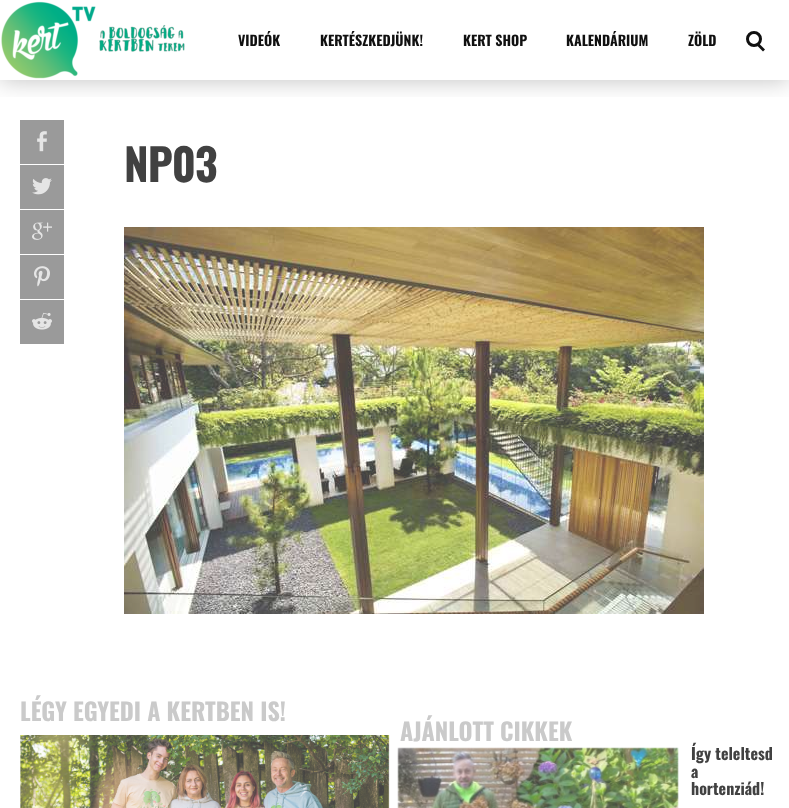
<svg xmlns="http://www.w3.org/2000/svg" xmlns:xlink="http://www.w3.org/1999/xlink" width="789" height="808" viewBox="0 0 789 808">
<style>
.cls-1{font:bold 14px Oswald;fill:#101010}
.cls-2{font:bold 44px Oswald;letter-spacing:-1px;fill:#414141}
.cls-3{font:bold 24px Oswald;fill:#cacaca}
.cls-4{font:bold 16px Oswald;fill:#414141}
</style>
<defs>
<clipPath id="clip1"><rect x="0" y="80" width="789" height="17"/></clipPath>
</defs>
<rect width="100%" height="100%" fill="#ffffff"/>
<g clip-path="url(#clip1)">
<rect fill="#000000" fill-opacity="0.25" filter="blur(12px)" x="0" y="0" width="789" height="80"/>
</g>
<image xlink:href="image0.png" x="1" y="1" width="184" height="78"/>
<circle fill="none" stroke="#101010" stroke-width="3" cx="754" cy="39" r="6.5"/>
<path fill="#101010" d="M759 43.5L765 49.5L763 51.5L757 45.5Z"/>
<rect fill="#9a9a9a" x="20" y="120" width="44" height="44"/>
<image xlink:href="image1.png" x="37" y="131" width="10" height="21"/>
<rect fill="#9a9a9a" x="20" y="165" width="44" height="44"/>
<image xlink:href="image2.png" x="32" y="178" width="20" height="17"/>
<rect fill="#9a9a9a" x="20" y="210" width="44" height="44"/>
<image xlink:href="image3.png" x="32" y="222" width="20" height="18"/>
<rect fill="#9a9a9a" x="20" y="255" width="44" height="44"/>
<image xlink:href="image4.png" x="34" y="266" width="16" height="21"/>
<rect fill="#9a9a9a" x="20" y="300" width="44" height="44"/>
<image xlink:href="image5.png" x="32" y="312" width="20" height="18"/>
<image xlink:href="image6.png" x="124" y="227" width="580" height="387"/>
<image xlink:href="image7.png" x="20" y="735" width="370" height="73"/>
<image xlink:href="image8.png" x="397" y="747" width="282" height="61"/>
<text class="cls-1" x="238" y="46">VIDEÓK</text>
<text class="cls-1" x="320" y="46">KERTÉSZKEDJÜNK!</text>
<text class="cls-1" x="463" y="46">KERT SHOP</text>
<text class="cls-1" x="566" y="46">KALENDÁRIUM</text>
<text class="cls-1" x="688" y="46">ZÖLD</text>
<text class="cls-2" x="124" y="182">NP03</text>
<text class="cls-3" x="20" y="721">LÉGY EGYEDI A KERTBEN IS!</text>
<text class="cls-3" x="400" y="741">AJÁNLOTT CIKKEK</text>
<text class="cls-4"><tspan x="691" y="760">Így teleltesd</tspan><tspan x="691" y="778">a</tspan><tspan x="691" y="795">hortenziád!</tspan></text>
</svg>
